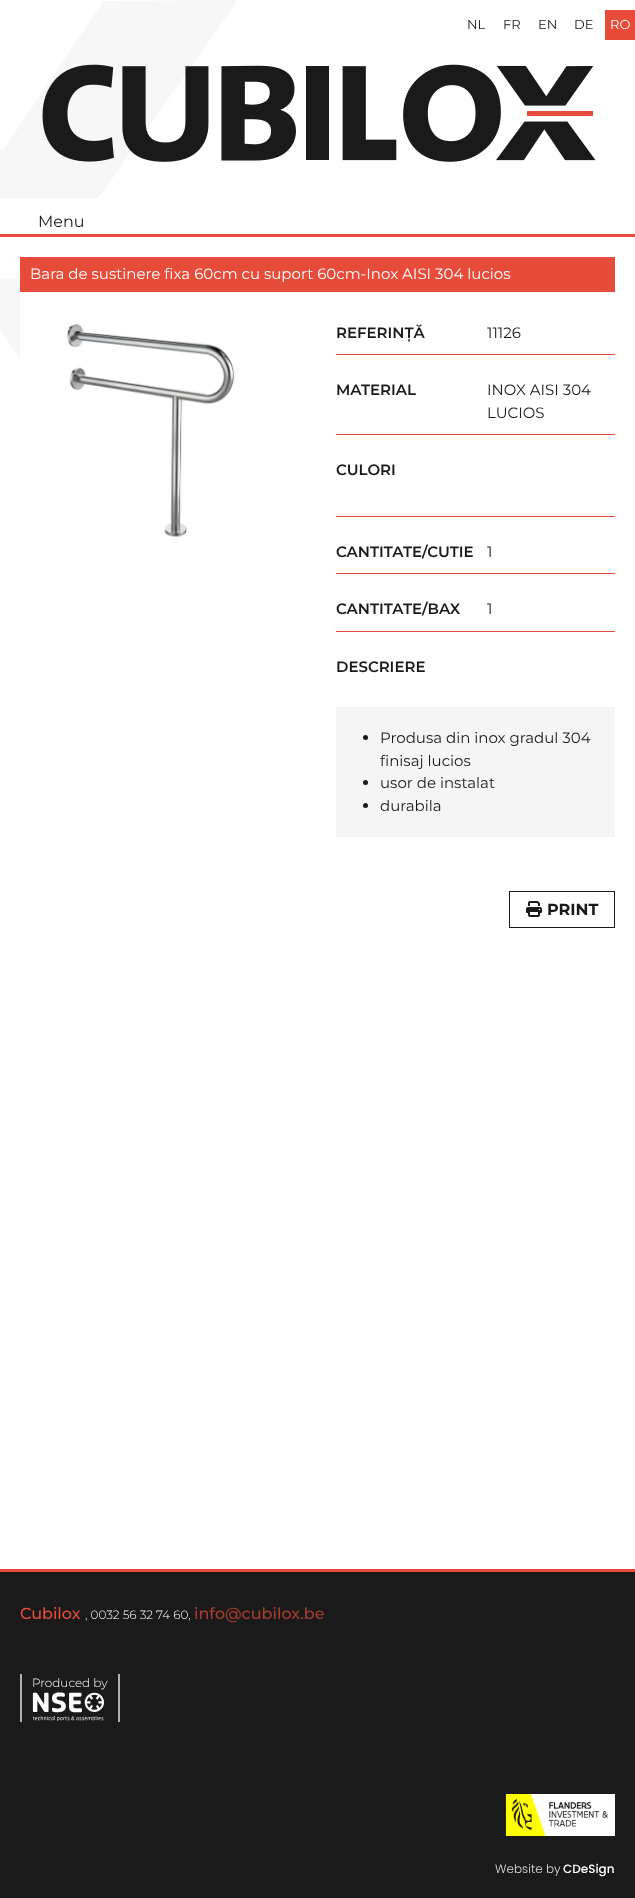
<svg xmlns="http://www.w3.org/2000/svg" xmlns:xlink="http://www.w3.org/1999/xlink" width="635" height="1898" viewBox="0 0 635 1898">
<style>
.cls-1{font:13px Montserrat;fill:#1a1a1a}
.cls-2{font:13px Montserrat;fill:#ffffff}
.cls-3{font:16px Montserrat;fill:#1a1a1a}
.cls-4{font:15px Montserrat;fill:#ffffff}
.cls-5{font:600 15px Montserrat;fill:#1a1a1a}
.cls-6{font:15px Montserrat;fill:#1a1a1a}
.cls-7{font:bold 16px Montserrat;fill:#1a1a1a}
.cls-8{font:500 16px Montserrat;fill:#e64c39}
.cls-9{font:300 12px Montserrat;fill:#ffffff}
.cls-10{font:500 16px Montserrat;fill:#a93d30}
.cls-11{font:300 12px Poppins;fill:#dcdcdc}
.cls-12{font:500 12px Poppins;fill:#ffffff}
</style>
<rect width="100%" height="100%" fill="#ffffff"/>
<image xlink:href="image0.png" x="0" y="0" width="237" height="198"/>
<rect fill="#e64c39" x="605" y="10" width="30" height="30"/>
<image xlink:href="image1.png" x="42" y="64" width="554" height="98"/>
<rect fill="#e64c39" x="0" y="234" width="635" height="3"/>
<image xlink:href="image2.png" x="0" y="279" width="20" height="79"/>
<rect fill="#e64c39" x="20" y="257" width="595" height="35"/>
<image xlink:href="image3.png" x="20" y="292" width="228" height="245"/>
<rect fill="#e64c39" x="336" y="354" width="279" height="1"/>
<rect fill="#e64c39" x="336" y="434" width="279" height="1"/>
<rect fill="#e64c39" x="336" y="516" width="279" height="1"/>
<rect fill="#e64c39" x="336" y="573" width="279" height="1"/>
<rect fill="#e64c39" x="336" y="631" width="279" height="1"/>
<rect fill="#f5f5f5" x="336" y="707" width="279" height="130"/>
<circle fill="#1a1a1a" cx="365.5" cy="737.5" r="2.5"/>
<circle fill="#1a1a1a" cx="365.5" cy="782.5" r="2.5"/>
<circle fill="#1a1a1a" cx="365.5" cy="805.5" r="2.5"/>
<rect fill="none" stroke="#1a1a1a" x="509.5" y="891.5" width="105" height="36"/>
<image xlink:href="image4.png" x="526" y="901" width="16" height="16"/>
<rect fill="#1a1a1a" x="0" y="1572" width="635" height="326"/>
<rect fill="#e64c39" x="0" y="1569" width="635" height="3"/>
<rect fill="#afafaf" x="118" y="1674" width="2" height="48"/>
<rect fill="#afafaf" x="20" y="1674" width="2" height="48"/>
<image xlink:href="image5.png" x="32" y="1692" width="73" height="30"/>
<image xlink:href="image6.png" x="505" y="1794" width="110" height="42"/>
<text class="cls-1" x="467" y="29">NL</text>
<text class="cls-1" x="503" y="29">FR</text>
<text class="cls-1" x="538" y="29">EN</text>
<text class="cls-1" x="574" y="29">DE</text>
<text class="cls-2" x="610" y="29">RO</text>
<text class="cls-3" x="38" y="227">Menu</text>
<text class="cls-4" x="30" y="279">Bara de sustinere fixa 60cm cu suport 60cm-Inox AISI 304 lucios</text>
<text class="cls-5" x="336" y="338">REFERINȚĂ</text>
<text class="cls-6" x="487" y="338">11126</text>
<text class="cls-5" x="336" y="395">MATERIAL</text>
<text class="cls-6"><tspan x="487" y="395">INOX AISI 304</tspan><tspan x="487" y="418">LUCIOS</tspan></text>
<text class="cls-5" x="336" y="475">CULORI</text>
<text class="cls-5" x="336" y="557">CANTITATE/CUTIE</text>
<text class="cls-6" x="487" y="557">1</text>
<text class="cls-5" x="336" y="614">CANTITATE/BAX</text>
<text class="cls-6" x="487" y="614">1</text>
<text class="cls-5" x="336" y="672">DESCRIERE</text>
<text class="cls-6"><tspan x="380" y="743">Produsa din inox gradul 304</tspan><tspan x="380" y="766">finisaj lucios</tspan><tspan x="380" y="788">usor de instalat</tspan><tspan x="380" y="811">durabila</tspan></text>
<text class="cls-7" x="547" y="915">PRINT</text>
<text class="cls-8" x="20" y="1619">Cubilox</text>
<text class="cls-9" x="85" y="1619">, 0032 56 32 74 60,</text>
<text class="cls-10" x="194" y="1619">info@cubilox.be</text>
<text class="cls-9" x="32" y="1687">Produced by</text>
<text class="cls-11" x="495" y="1873">Website by</text>
<text class="cls-12" x="563" y="1873">CDeSign</text>
</svg>
